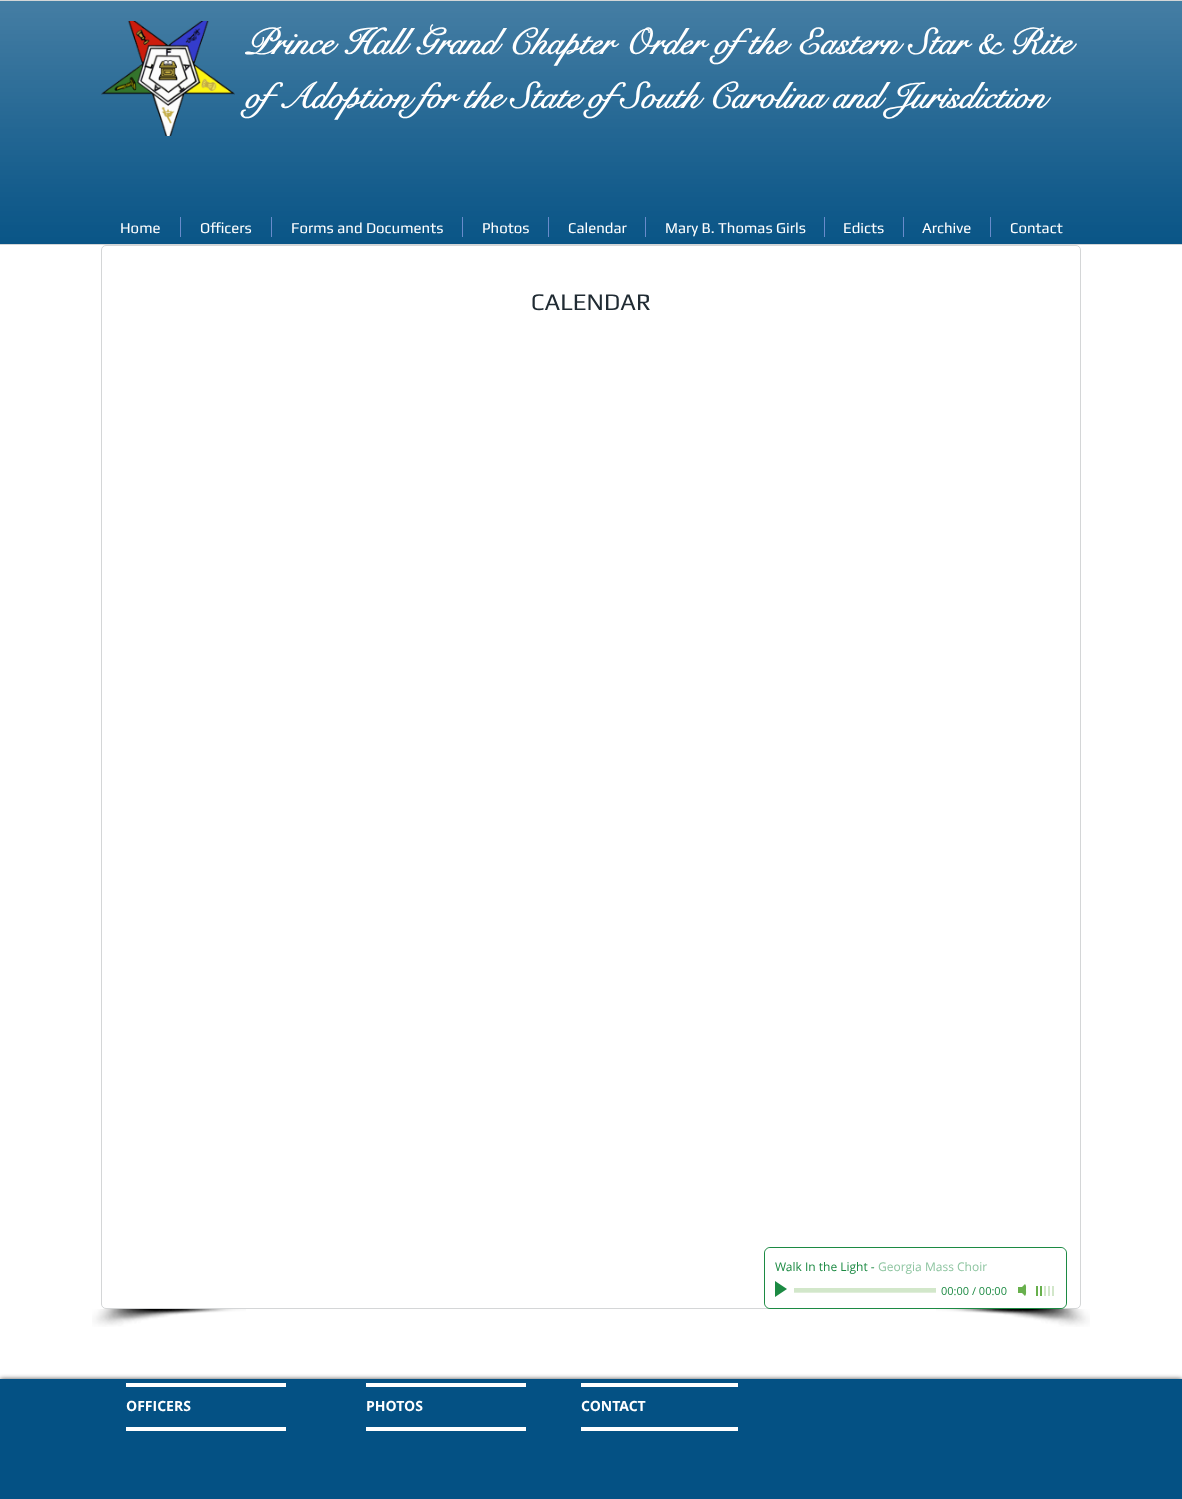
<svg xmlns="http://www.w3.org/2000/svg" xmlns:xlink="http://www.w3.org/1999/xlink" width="1182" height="1499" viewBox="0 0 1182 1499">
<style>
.cls-1{font:bold 36px 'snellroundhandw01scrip';fill:#ffffff}
.cls-2{font:15px Play;fill:#ffffff}
.cls-3{font:24px Play;fill:#202b33}
.cls-4{font:12px Open Sans;fill:#1c8a43}
.cls-5{font:12px Open Sans;fill:#8ec5a1}
.cls-6{font:11px Open Sans;fill:#1c8a43}
.cls-7{font:bold 14px Open Sans;fill:#ffffff}
</style>
<rect width="100%" height="100%" fill="#ffffff"/>
<rect fill="#045184" x="0" y="1" width="1182" height="243"/>
<image xlink:href="image0.png" x="0" y="1" width="1182" height="243"/>
<rect fill="#d4d6d7" x="0" y="0" width="1182" height="1"/>
<rect fill="#d4d6d7" x="0" y="244" width="1182" height="1"/>
<image xlink:href="image1.png" x="101" y="21" width="134" height="115"/>
<rect fill="#688bcc" x="180" y="217" width="1" height="20"/>
<rect fill="#688bcc" x="271" y="217" width="1" height="20"/>
<rect fill="#688bcc" x="462" y="217" width="1" height="20"/>
<rect fill="#688bcc" x="548" y="217" width="1" height="20"/>
<rect fill="#688bcc" x="645" y="217" width="1" height="20"/>
<rect fill="#688bcc" x="824" y="217" width="1" height="20"/>
<rect fill="#688bcc" x="903" y="217" width="1" height="20"/>
<rect fill="#688bcc" x="990" y="217" width="1" height="20"/>
<rect fill="none" stroke="#d4d6d7" x="101.5" y="245.5" width="979" height="1063" rx="4.5"/>
<image xlink:href="image2.png" x="92" y="1309" width="154" height="18"/>
<image xlink:href="image3.png" x="936" y="1309" width="154" height="18"/>
<rect fill="none" stroke="#1c8a43" x="764.5" y="1247.5" width="302" height="61" rx="5.5"/>
<rect fill="#ffffff" x="765" y="1248" width="301" height="60" rx="6"/>
<path fill="#1c8a43" d="M775 1297V1281L787 1289Z"/>
<rect fill="#d2e7ca" x="794" y="1288" width="142" height="4"/>
<rect fill="#e0eeda" x="794" y="1292" width="142" height="1"/>
<path fill="#68b04d" d="M1025 1284L1019 1290L1025 1296C1026.5 1294.5 1026 1292 1026 1290C1026 1288 1026.5 1285.5 1025 1284Z"/>
<rect fill="#68b04d" x="1018" y="1287" width="4" height="6"/>
<rect fill="#68b04d" x="1036" y="1286" width="2" height="10"/>
<rect fill="#68b04d" x="1040" y="1286" width="2" height="10"/>
<rect fill="#d2e7ca" x="1044" y="1286" width="2" height="10"/>
<rect fill="#d2e7ca" x="1048" y="1286" width="2" height="10"/>
<rect fill="#d2e7ca" x="1052" y="1286" width="2" height="10"/>
<rect fill="#000000" fill-opacity="0.7" filter="blur(2.5px)" x="0" y="1379" width="1182" height="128"/>
<rect fill="#045184" x="0" y="1379" width="1182" height="120"/>
<rect fill="#ffffff" x="126" y="1383" width="160" height="4"/>
<rect fill="#ffffff" x="366" y="1383" width="160" height="4"/>
<rect fill="#ffffff" x="581" y="1383" width="157" height="4"/>
<rect fill="#ffffff" x="126" y="1427" width="160" height="4"/>
<rect fill="#ffffff" x="366" y="1427" width="160" height="4"/>
<rect fill="#ffffff" x="581" y="1427" width="157" height="4"/>
<text class="cls-1"><tspan x="245" y="54" word-spacing="1.25">Prince Hall Grand Chapter Order of the Eastern Star &amp; Rite</tspan><tspan x="245" y="108">of Adoption for the State of South Carolina and Jurisdiction</tspan></text>
<text class="cls-2" x="120" y="233">Home</text>
<text class="cls-2" x="200" y="233">Officers</text>
<text class="cls-2" x="291" y="233">Forms and Documents</text>
<text class="cls-2" x="482" y="233">Photos</text>
<text class="cls-2" x="568" y="233">Calendar</text>
<text class="cls-2" x="665" y="233">Mary B. Thomas Girls</text>
<text class="cls-2" x="843" y="233">Edicts</text>
<text class="cls-2" x="922" y="233">Archive</text>
<text class="cls-2" x="1010" y="233">Contact</text>
<text class="cls-3" x="531" y="310">CALENDAR</text>
<text class="cls-4" x="775" y="1271">Walk In the Light -</text>
<text class="cls-5" x="878" y="1271">Georgia Mass Choir</text>
<text class="cls-6" x="941" y="1295">00:00 / 00:00</text>
<text class="cls-7" x="126" y="1411">OFFICERS</text>
<text class="cls-7" x="366" y="1411">PHOTOS</text>
<text class="cls-7" x="581" y="1411">CONTACT</text>
</svg>
